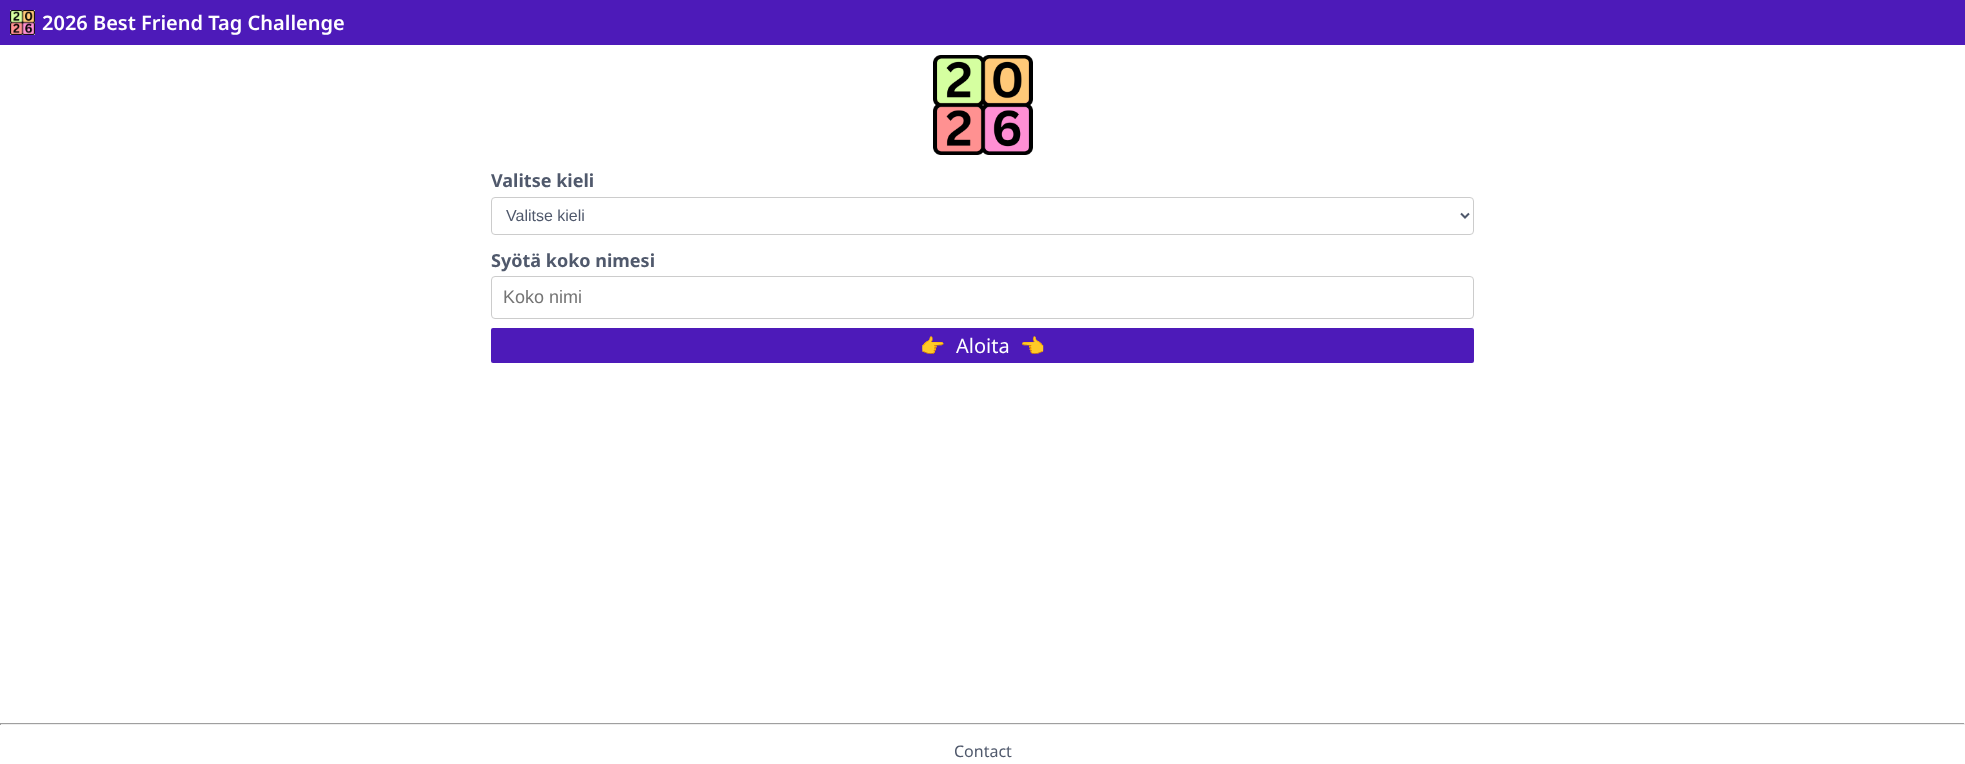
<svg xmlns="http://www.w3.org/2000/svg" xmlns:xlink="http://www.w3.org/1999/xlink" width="1965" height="764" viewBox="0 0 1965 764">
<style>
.cls-1{font:600 20px Noto Sans;fill:#ffffff}
.cls-2{font:bold 18px Noto Sans;fill:#50596c}
.cls-3{font:16px Liberation Sans;fill:#50596c}
.cls-4{font:18px Liberation Sans;fill:#757575}
.cls-5{font:20px Noto Color Emoji;fill:#ffffff}
.cls-6{font:20px Noto Sans;fill:#ffffff}
.cls-7{font:16px Noto Sans;fill:#50596c}
</style>
<rect width="100%" height="100%" fill="#ffffff"/>
<rect fill="#4d1ab9" x="0" y="0" width="1965" height="45"/>
<image xlink:href="image0.png" x="10" y="10" width="25" height="25"/>
<image xlink:href="image1.png" x="933" y="55" width="100" height="100"/>
<rect fill="none" stroke="#cccccc" x="491.5" y="197.5" width="982" height="37" rx="3.5"/>
<path fill="none" stroke="#50596c" stroke-width="2" d="M1461 213.5L1465 217.5L1469 213.5"/>
<rect fill="none" stroke="#cccccc" x="491.5" y="276.5" width="982" height="42" rx="3.5"/>
<rect fill="#4d1ab9" x="491" y="328" width="983" height="35" rx="2"/>
<rect fill="#9f9f9f" x="0" y="723" width="1965" height="1"/>
<rect fill="#eeeeee" x="1964" y="723" width="1" height="2"/>
<rect fill="#eeeeee" x="0" y="724" width="1965" height="1"/>
<rect fill="#9f9f9f" x="0" y="723" width="1" height="2"/>
<text class="cls-1" x="42" y="30">2026 Best Friend Tag Challenge</text>
<text class="cls-2" x="491" y="187">Valitse kieli</text>
<text class="cls-3" x="506" y="221">Valitse kieli</text>
<text class="cls-2" x="491" y="267">Syötä koko nimesi</text>
<text class="cls-4" x="503" y="303">Koko nimi</text>
<text class="cls-5" x="920" y="353">👉</text>
<text class="cls-6" x="956" y="353">Aloita</text>
<text class="cls-5" x="1020" y="353">👈</text>
<text class="cls-7" x="954" y="757">Contact</text>
</svg>
